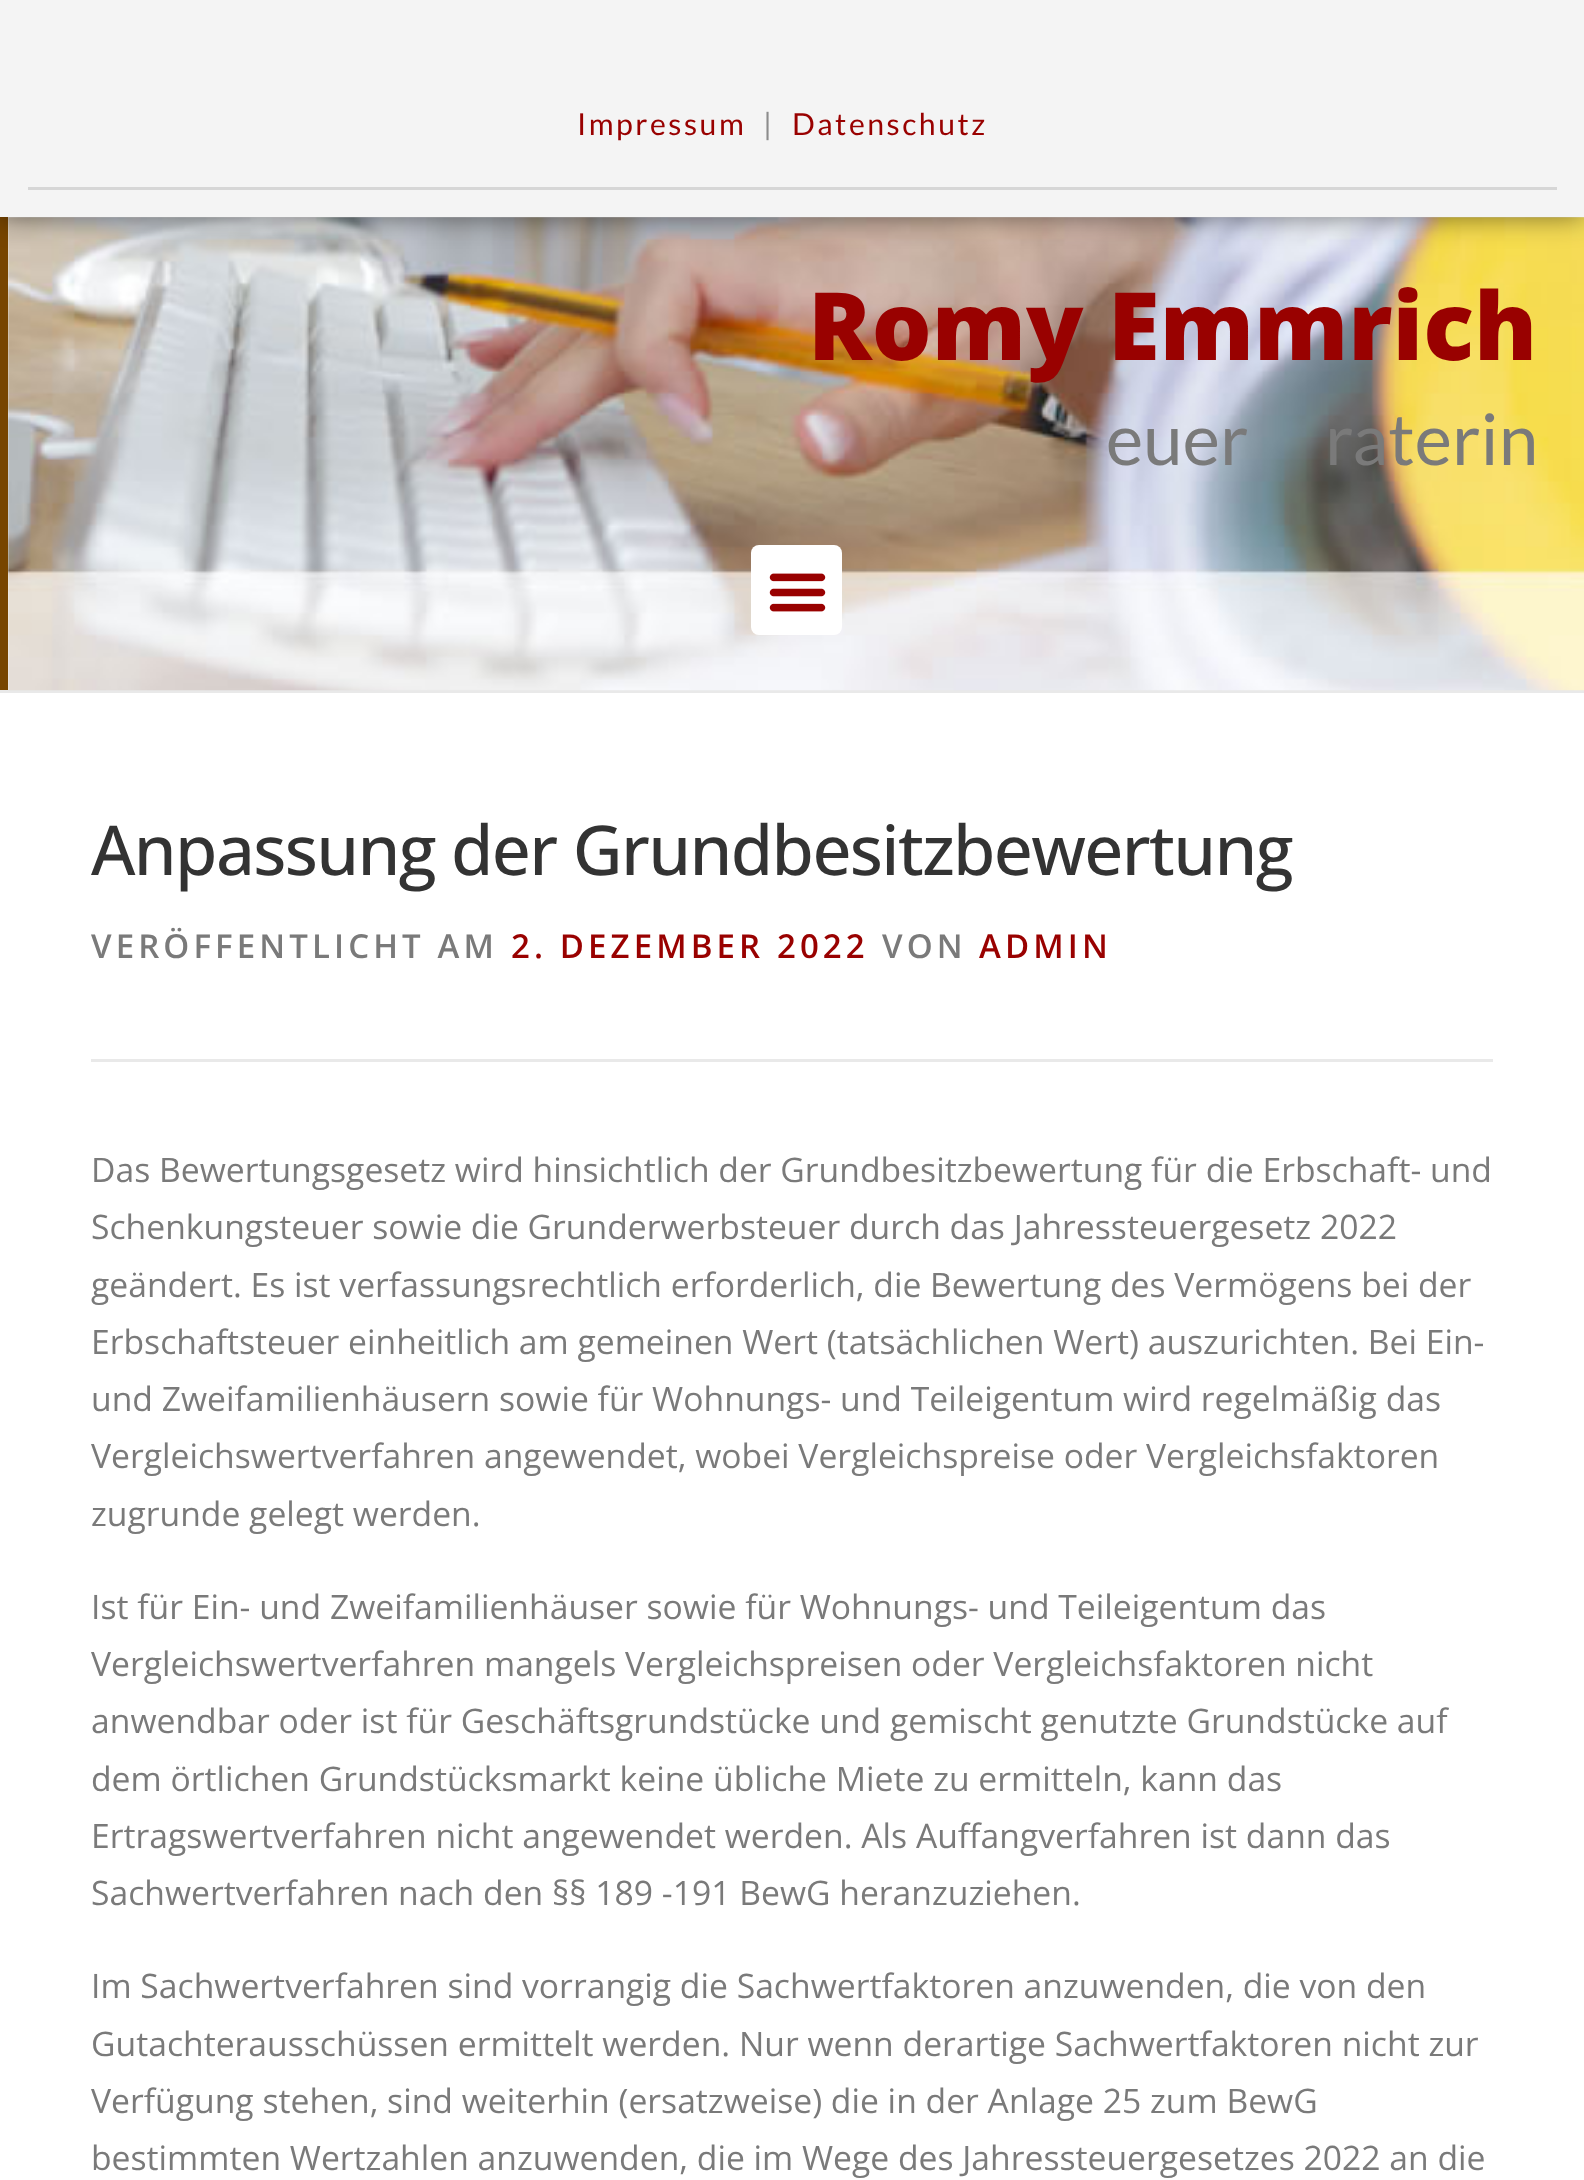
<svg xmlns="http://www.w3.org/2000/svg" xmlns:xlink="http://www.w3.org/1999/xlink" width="1584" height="2180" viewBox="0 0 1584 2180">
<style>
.cls-1{font:30.25px Lato;letter-spacing:2.5px;fill:#990100}
.cls-2{font:30.25px Lato;letter-spacing:2.5px;fill:#8c8c8c}
.cls-3{font:800 94.25px Open Sans;fill:#990100}
.cls-4{font:71px Lato;fill:#7a7a7a}
.cls-5{font:500 68.75px Open Sans;letter-spacing:-1.65px;fill:#333333}
.cls-6{font:600 33px Open Sans;letter-spacing:4.1px;fill:#7a7a7a}
.cls-7{font:600 33px Open Sans;letter-spacing:4.1px;fill:#990100}
.cls-8{font:33.7px Open Sans;fill:#7a7a7a}
</style>
<rect width="100%" height="100%" fill="#ffffff"/>
<rect fill="#e9e9e9" x="0" y="690" width="1584" height="3"/>
<image xlink:href="image0.png" x="8" y="217" width="1576" height="474"/>
<rect fill="#774500" x="0" y="217" width="8" height="473"/>
<rect fill="#000000" fill-opacity="0.5" filter="blur(14px)" x="0" y="0" width="1584" height="217"/>
<rect fill="#f4f4f4" x="0" y="0" width="1584" height="217"/>
<rect fill="#d6d6d6" x="28" y="187" width="1529" height="3"/>
<rect fill="#ffffff" x="751" y="545" width="91" height="90" rx="8"/>
<image xlink:href="image1.png" x="769" y="573" width="57" height="39"/>
<rect fill="#e9e9e9" x="91" y="1059" width="1402" height="3"/>
<text class="cls-1" x="577" y="135">Impressum</text>
<text class="cls-2" x="763" y="135">|</text>
<text class="cls-1" x="792" y="135">Datenschutz</text>
<text class="cls-3" x="808" y="360">Romy Emmrich</text>
<text class="cls-4" x="1106" y="465">euer</text>
<text class="cls-4" x="1325" y="465">raterin</text>
<text class="cls-5" x="91" y="875">Anpassung der Grundbesitzbewertung</text>
<text class="cls-6" x="91" y="958">VERÖFFENTLICHT AM</text>
<text class="cls-7" x="511" y="958">2. DEZEMBER 2022</text>
<text class="cls-6" x="882" y="958">VON</text>
<text class="cls-7" x="979" y="958">ADMIN</text>
<text class="cls-8"><tspan x="91" y="1182">Das Bewertungsgesetz wird hinsichtlich der Grundbesitzbewertung für die Erbschaft- und</tspan><tspan x="91" y="1239">Schenkungsteuer sowie die Grunderwerbsteuer durch das Jahressteuergesetz 2022</tspan><tspan x="91" y="1297">geändert. Es ist verfassungsrechtlich erforderlich, die Bewertung des Vermögens bei der</tspan><tspan x="91" y="1354">Erbschaftsteuer einheitlich am gemeinen Wert (tatsächlichen Wert) auszurichten. Bei Ein-</tspan><tspan x="91" y="1411">und Zweifamilienhäusern sowie für Wohnungs- und Teileigentum wird regelmäßig das</tspan><tspan x="91" y="1468">Vergleichswertverfahren angewendet, wobei Vergleichspreise oder Vergleichsfaktoren</tspan><tspan x="91" y="1526">zugrunde gelegt werden.</tspan></text>
<text class="cls-8"><tspan x="91" y="1619">Ist für Ein- und Zweifamilienhäuser sowie für Wohnungs- und Teileigentum das</tspan><tspan x="91" y="1676">Vergleichswertverfahren mangels Vergleichspreisen oder Vergleichsfaktoren nicht</tspan><tspan x="91" y="1733">anwendbar oder ist für Geschäftsgrundstücke und gemischt genutzte Grundstücke auf</tspan><tspan x="91" y="1791">dem örtlichen Grundstücksmarkt keine übliche Miete zu ermitteln, kann das</tspan><tspan x="91" y="1848">Ertragswertverfahren nicht angewendet werden. Als Auffangverfahren ist dann das</tspan><tspan x="91" y="1905">Sachwertverfahren nach den §§ 189 -191 BewG heranzuziehen.</tspan></text>
<text class="cls-8"><tspan x="91" y="1998">Im Sachwertverfahren sind vorrangig die Sachwertfaktoren anzuwenden, die von den</tspan><tspan x="91" y="2056">Gutachterausschüssen ermittelt werden. Nur wenn derartige Sachwertfaktoren nicht zur</tspan><tspan x="91" y="2113">Verfügung stehen, sind weiterhin (ersatzweise) die in der Anlage 25 zum BewG</tspan><tspan x="91" y="2170">bestimmten Wertzahlen anzuwenden, die im Wege des Jahressteuergesetzes 2022 an die</tspan></text>
</svg>
